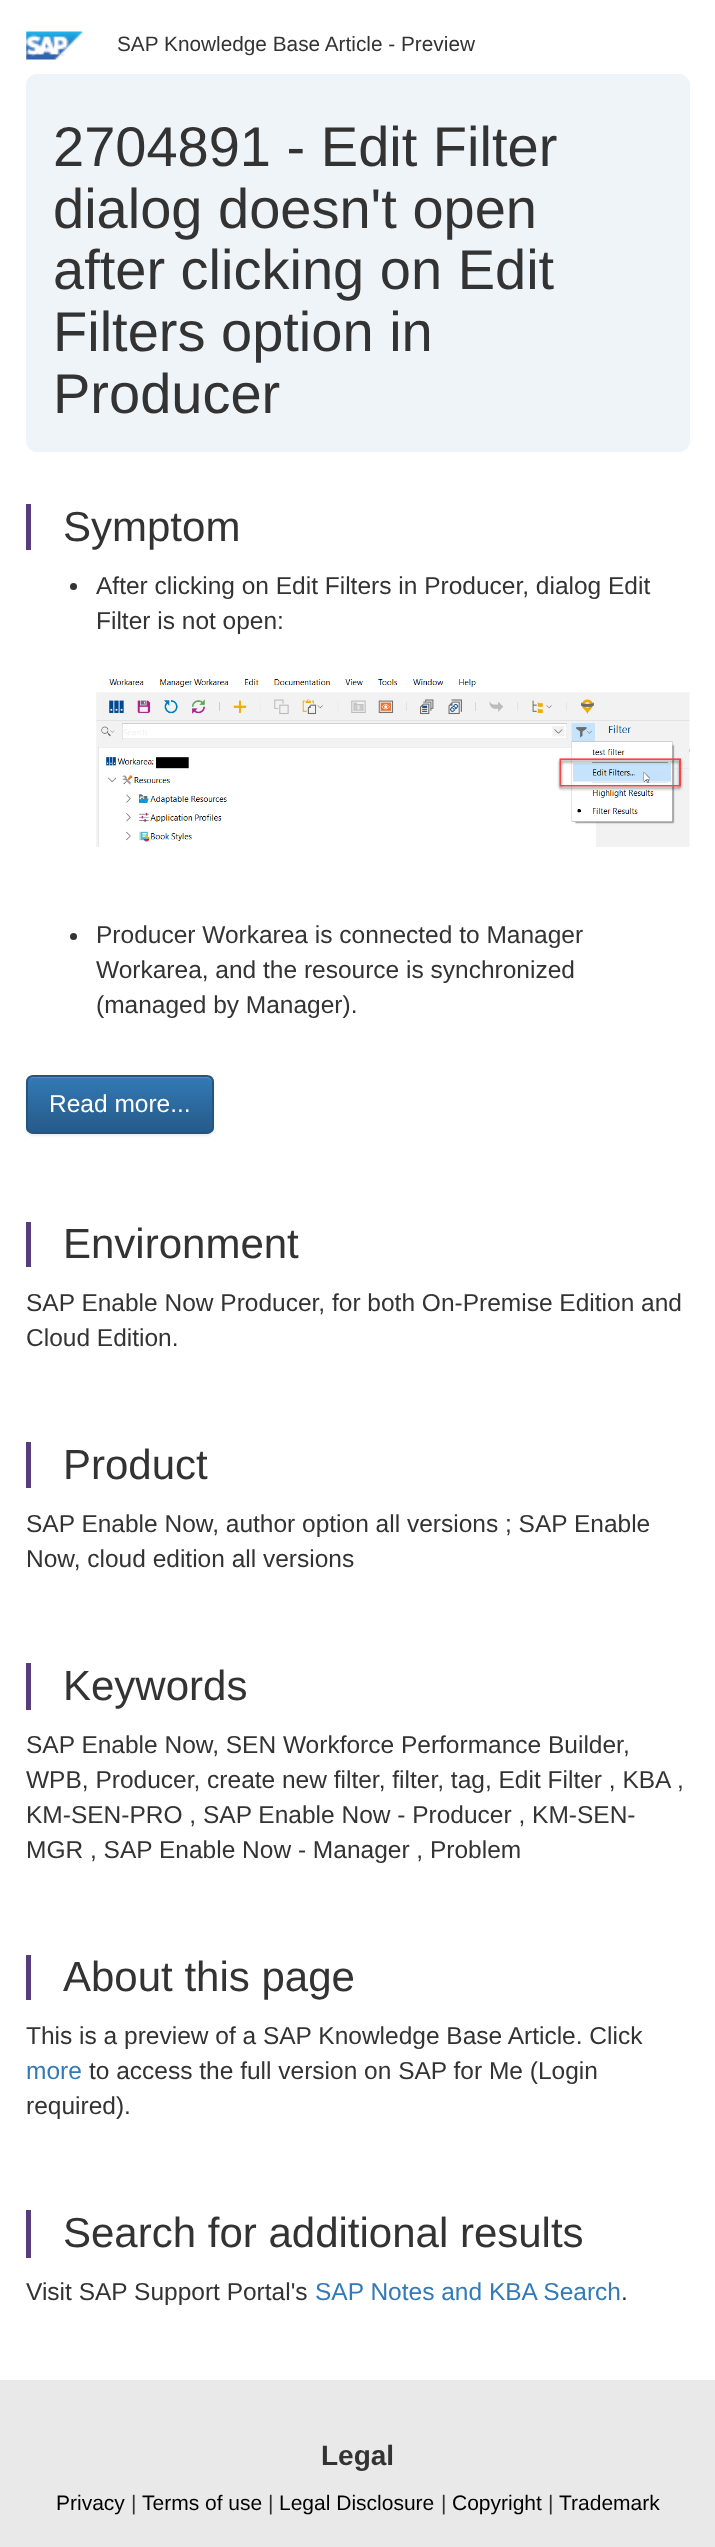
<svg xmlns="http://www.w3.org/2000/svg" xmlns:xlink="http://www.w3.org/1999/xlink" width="715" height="2547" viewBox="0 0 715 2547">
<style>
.cls-1{font:20.8px Liberation Sans;fill:#333333}
.cls-2{font:56px Liberation Sans;fill:#333333}
.cls-3{font:42px Liberation Sans;fill:#333333}
.cls-4{font:24.5px Liberation Sans;fill:#333333}
.cls-5{font:24.5px Liberation Sans;fill:#ffffff}
.cls-6{font:24.5px Liberation Sans;fill:#337ab7}
.cls-7{font:bold 28px Liberation Sans;fill:#333333}
.cls-8{font:21px Liberation Sans;fill:#000000}
.cls-9{font:21px Liberation Sans;fill:#333333}
</style>
<defs>
<clipPath id="clip1"><rect x="26" y="1075" width="188" height="59" rx="7"/></clipPath>
<linearGradient id="g1" gradientUnits="userSpaceOnUse" x1="120" y1="1076" x2="120" y2="1132"><stop offset="0" stop-color="#337ab7"/><stop offset="1" stop-color="#265a88"/></linearGradient>
</defs>
<rect width="100%" height="100%" fill="#ffffff"/>
<image xlink:href="image0.png" x="26" y="31" width="57" height="29"/>
<rect fill="#eff4f9" x="26" y="74" width="664" height="378" rx="11"/>
<rect fill="#563d7c" x="26" y="504" width="5" height="46"/>
<circle fill="#333333" cx="73.5" cy="586.5" r="3.5"/>
<image xlink:href="image1.png" x="96" y="679" width="594" height="168"/>
<circle fill="#333333" cx="73.5" cy="936.5" r="3.5"/>
<rect fill="#000000" fill-opacity="0.07" filter="blur(1px)" x="26" y="1076" width="188" height="60" rx="7"/>
<g clip-path="url(#clip1)">
<rect fill="url(#g1)" x="26" y="1076" width="188" height="56"/>
</g>
<path fill="#ffffff" fill-opacity="0.15" d="M33 1078H206C209 1078 212 1080 212 1083V1081C212 1078 210 1076 207 1076H33C30 1076 28 1078 28 1081V1083C28 1080 30 1078 33 1078Z"/>
<rect fill="none" stroke="#245580" stroke-width="2" x="27" y="1076" width="186" height="57" rx="6"/>
<rect fill="#563d7c" x="26" y="1222" width="5" height="45"/>
<rect fill="#563d7c" x="26" y="1442" width="5" height="46"/>
<rect fill="#563d7c" x="26" y="1663" width="5" height="47"/>
<rect fill="#563d7c" x="26" y="1955" width="5" height="45"/>
<rect fill="#563d7c" x="26" y="2210" width="5" height="48"/>
<rect fill="#e9e9e9" x="0" y="2380" width="715" height="167"/>
<text class="cls-1" x="117" y="51">SAP Knowledge Base Article - Preview</text>
<text class="cls-2"><tspan x="53" y="166">2704891 - Edit Filter</tspan><tspan x="53" y="228">dialog doesn't open</tspan><tspan x="53" y="289">after clicking on Edit</tspan><tspan x="53" y="351">Filters option in</tspan><tspan x="53" y="413">Producer</tspan></text>
<text class="cls-3" x="63" y="541">Symptom</text>
<text class="cls-4"><tspan x="96" y="594">After clicking on Edit Filters in Producer, dialog Edit</tspan><tspan x="96" y="629">Filter is not open:</tspan></text>
<text class="cls-4"><tspan x="96" y="943">Producer Workarea is connected to Manager</tspan><tspan x="96" y="978">Workarea, and the resource is synchronized</tspan><tspan x="96" y="1013">(managed by Manager).</tspan></text>
<text class="cls-5" x="49" y="1112">Read more...</text>
<text class="cls-3" x="63" y="1258">Environment</text>
<text class="cls-4"><tspan x="26" y="1311">SAP Enable Now Producer, for both On-Premise Edition and</tspan><tspan x="26" y="1346">Cloud Edition.</tspan></text>
<text class="cls-3" x="63" y="1479">Product</text>
<text class="cls-4"><tspan x="26" y="1532">SAP Enable Now, author option all versions ; SAP Enable</tspan><tspan x="26" y="1567">Now, cloud edition all versions</tspan></text>
<text class="cls-3" x="63" y="1700">Keywords</text>
<text class="cls-4"><tspan x="26" y="1753">SAP Enable Now, SEN Workforce Performance Builder,</tspan><tspan x="26" y="1788">WPB, Producer, create new filter, filter, tag, Edit Filter , KBA ,</tspan><tspan x="26" y="1823">KM-SEN-PRO , SAP Enable Now - Producer , KM-SEN-</tspan><tspan x="26" y="1858">MGR , SAP Enable Now - Manager , Problem</tspan></text>
<text class="cls-3" x="63" y="1991">About this page</text>
<text class="cls-4" x="26" y="2044">This is a preview of a SAP Knowledge Base Article. Click</text>
<text class="cls-6" x="26" y="2079">more</text>
<text class="cls-4" x="89" y="2079">to access the full version on SAP for Me (Login</text>
<text class="cls-4" x="26" y="2114">required).</text>
<text class="cls-3" x="63" y="2247">Search for additional results</text>
<text class="cls-4" x="26" y="2300">Visit SAP Support Portal's</text>
<text class="cls-6" x="315" y="2300">SAP Notes and KBA Search</text>
<text class="cls-4" x="621" y="2300">.</text>
<text class="cls-7" x="321" y="2465">Legal</text>
<text class="cls-8" x="56" y="2510">Privacy</text>
<text class="cls-9" x="131" y="2510">|</text>
<text class="cls-8" x="142" y="2510">Terms of use</text>
<text class="cls-9" x="268" y="2510">|</text>
<text class="cls-8" x="279" y="2510">Legal Disclosure</text>
<text class="cls-9" x="441" y="2510">|</text>
<text class="cls-8" x="452" y="2510">Copyright</text>
<text class="cls-9" x="548" y="2510">|</text>
<text class="cls-8" x="559" y="2510">Trademark</text>
</svg>
